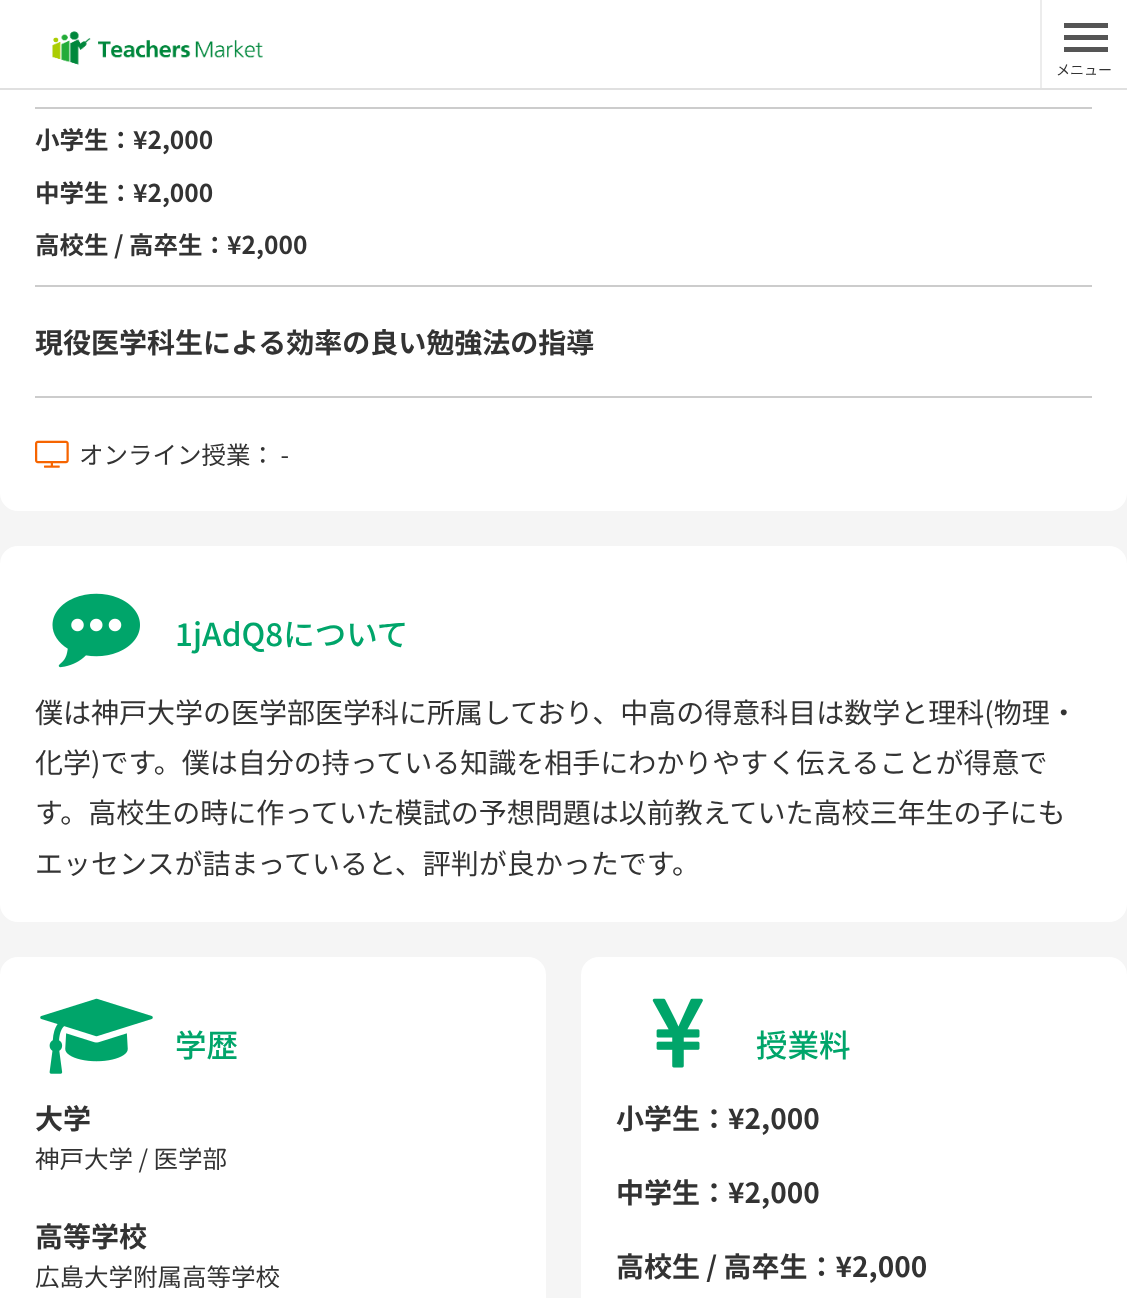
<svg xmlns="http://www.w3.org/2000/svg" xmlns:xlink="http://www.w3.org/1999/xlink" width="1127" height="1298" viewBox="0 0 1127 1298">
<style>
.cls-1{font:14px Noto Sans JP;fill:#333333}
.cls-2{font:bold 24.5px Noto Sans JP;fill:#333333}
.cls-3{font:bold 28px Noto Sans JP;fill:#333333}
.cls-4{font:24.5px Noto Sans JP;fill:#333333}
.cls-5{font:500 31.5px Noto Sans JP;fill:#00a56a}
.cls-6{font:28px Noto Sans JP;fill:#333333}
</style>
<rect width="100%" height="100%" fill="#f5f5f5"/>
<rect fill="#ffffff" x="0" y="-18" width="1127" height="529" rx="18"/>
<rect fill="#e0e0e0" x="0" y="88" width="1127" height="2"/>
<image xlink:href="image0.png" x="52" y="31" width="211" height="34"/>
<rect fill="#ececec" x="1040" y="0" width="2" height="88"/>
<rect fill="#555555" x="1064" y="35" width="44" height="5"/>
<rect fill="#555555" x="1064" y="23" width="44" height="5"/>
<rect fill="#555555" x="1064" y="47" width="44" height="5"/>
<rect fill="#cccccc" x="35" y="107" width="1057" height="2"/>
<rect fill="#cccccc" x="35" y="285" width="1057" height="2"/>
<rect fill="#cccccc" x="35" y="396" width="1057" height="2"/>
<image xlink:href="image1.png" x="35" y="440" width="34" height="28"/>
<rect fill="#ffffff" x="0" y="546" width="1127" height="376" rx="18"/>
<image xlink:href="image2.png" x="52" y="593" width="88" height="75"/>
<rect fill="#ffffff" x="0" y="957" width="546" height="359" rx="18"/>
<image xlink:href="image3.png" x="40" y="998" width="113" height="76"/>
<rect fill="#ffffff" x="581" y="957" width="546" height="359" rx="18"/>
<image xlink:href="image4.png" x="652" y="998" width="51" height="70"/>
<text class="cls-1" x="1056" y="75">メニュー</text>
<text class="cls-2" x="35" y="149">小学生：¥2,000</text>
<text class="cls-2" x="35" y="202">中学生：¥2,000</text>
<text class="cls-2" x="35" y="254">高校生 / 高卒生：¥2,000</text>
<text class="cls-3" x="35" y="353">現役医学科生による効率の良い勉強法の指導</text>
<text class="cls-4" x="79" y="464">オンライン授業： -</text>
<text class="cls-5" x="175" y="646">1jAdQ8について</text>
<text class="cls-6"><tspan x="35" y="723">僕は神戸大学の医学部医学科に所属しており、中高の得意科目は数学と理科(物理・</tspan><tspan x="35" y="773">化学)です。僕は自分の持っている知識を相手にわかりやすく伝えることが得意で</tspan><tspan x="35" y="823">す。高校生の時に作っていた模試の予想問題は以前教えていた高校三年生の子にも</tspan><tspan x="35" y="874">エッセンスが詰まっていると、評判が良かったです。</tspan></text>
<text class="cls-5" x="175" y="1057">学歴</text>
<text class="cls-3" x="35" y="1129">大学</text>
<text class="cls-4" x="35" y="1168">神戸大学 / 医学部</text>
<text class="cls-3" x="35" y="1247">高等学校</text>
<text class="cls-4" x="35" y="1286">広島大学附属高等学校</text>
<text class="cls-5" x="756" y="1057">授業料</text>
<text class="cls-3" x="616" y="1129">小学生：¥2,000</text>
<text class="cls-3" x="616" y="1203">中学生：¥2,000</text>
<text class="cls-3" x="616" y="1277">高校生 / 高卒生：¥2,000</text>
</svg>
